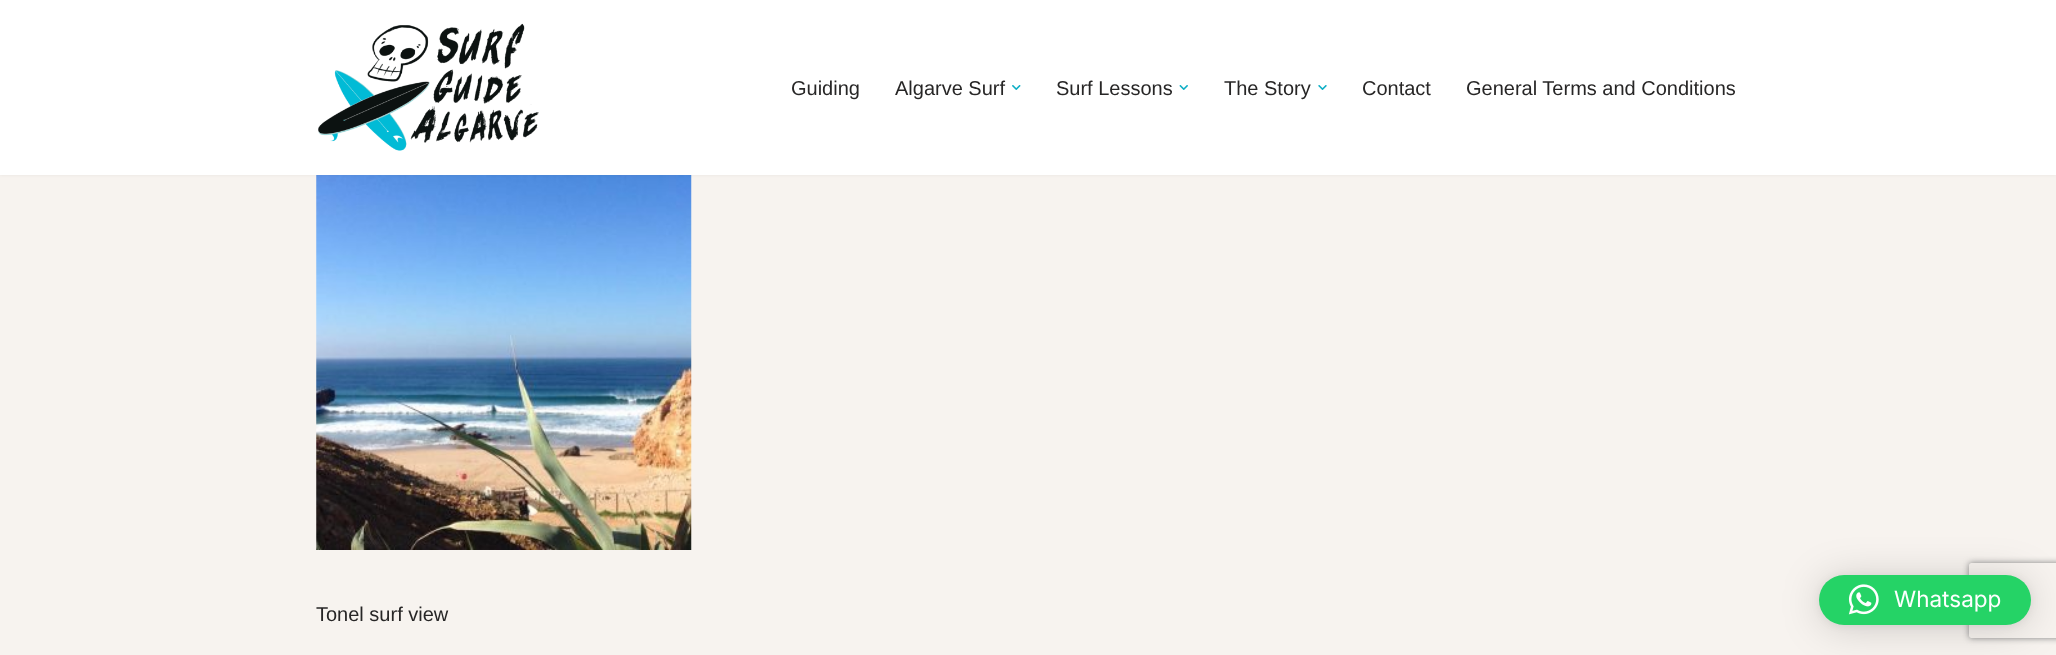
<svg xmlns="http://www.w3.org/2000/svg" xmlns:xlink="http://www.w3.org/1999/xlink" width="2056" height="655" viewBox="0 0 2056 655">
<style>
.cls-1{font:20px Liberation Sans;fill:#272626}
.cls-2{font:22.5px Inter;fill:#ffffff}
</style>
<defs>
<clipPath id="clip1"><path d="M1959 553H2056V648H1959ZM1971.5 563H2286.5C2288 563 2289 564 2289 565.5V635.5C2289 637 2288 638 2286.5 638H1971.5C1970 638 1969 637 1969 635.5V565.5C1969 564 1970 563 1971.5 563Z" clip-rule="evenodd"/></clipPath>
</defs>
<rect width="100%" height="100%" fill="#f7f3ef"/>
<image xlink:href="image4.png" x="316" y="175" width="376" height="375"/>
<rect fill="#000000" fill-opacity="0.1" filter="blur(2px)" x="0" y="-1" width="2056" height="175"/>
<rect fill="#ffffff" x="0" y="0" width="2056" height="175"/>
<image xlink:href="image0.png" x="318" y="23" width="221" height="128"/>
<image xlink:href="image1.png" x="1012" y="85" width="9" height="5"/>
<image xlink:href="image2.png" x="1179" y="85" width="9" height="5"/>
<image xlink:href="image3.png" x="1318" y="85" width="9" height="5"/>
<rect fill="#000000" fill-opacity="0.16" filter="blur(20px)" x="1819" y="578" width="212" height="50" rx="25"/>
<rect fill="#000000" fill-opacity="0.06" filter="blur(4px)" x="1819" y="576" width="212" height="50" rx="25"/>
<g clip-path="url(#clip1)">
<rect fill="#808080" filter="blur(3px)" x="1969" y="563" width="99" height="75" rx="2.5"/>
</g>
<rect fill="#25d366" x="1819" y="575" width="212" height="50" rx="25"/>
<image xlink:href="image5.png" x="1848" y="584" width="31" height="31"/>
<text class="cls-1" x="791" y="95">Guiding</text>
<text class="cls-1" x="895" y="95">Algarve Surf</text>
<text class="cls-1" x="1056" y="95">Surf Lessons</text>
<text class="cls-1" x="1224" y="95">The Story</text>
<text class="cls-1" x="1362" y="95">Contact</text>
<text class="cls-1" x="1466" y="95">General Terms and Conditions</text>
<text class="cls-1" x="316" y="621">Tonel surf view</text>
<text class="cls-2" x="1894" y="607">Whatsapp</text>
</svg>
